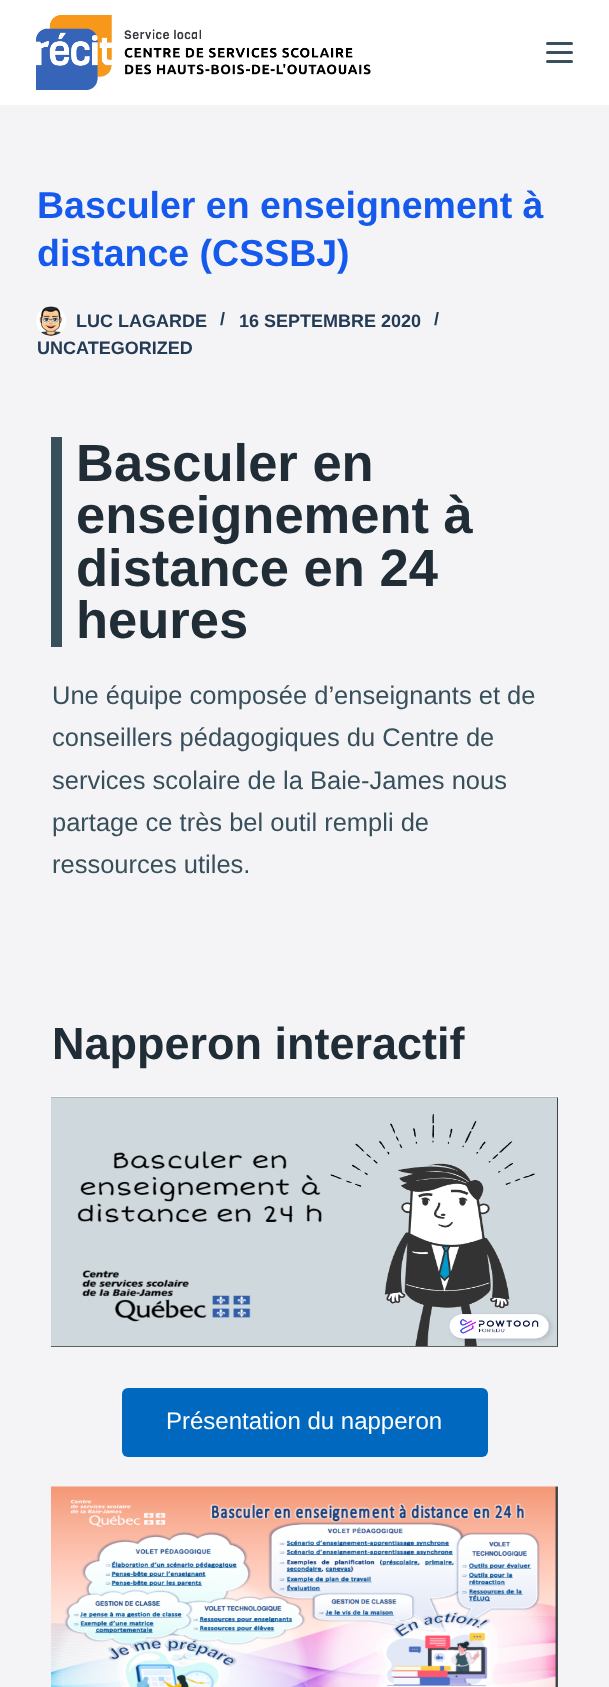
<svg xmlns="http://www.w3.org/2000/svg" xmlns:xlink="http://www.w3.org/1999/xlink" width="609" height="1687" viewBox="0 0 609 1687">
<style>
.cls-1{font:bold 37.5px Liberation Sans;fill:#1559ed}
.cls-2{font:bold 18px Liberation Sans;fill:#243b56}
.cls-3{font:bold 52.5px Liberation Sans;fill:#202d36}
.cls-4{font:25.5px Liberation Sans;fill:#384f5c}
.cls-5{font:bold 45px Liberation Sans;fill:#202d36}
.cls-6{font:24px Liberation Sans;fill:#ffffff}
</style>
<rect width="100%" height="100%" fill="#f4f4f6"/>
<rect fill="#ffffff" x="0" y="0" width="609" height="105"/>
<image xlink:href="image0.png" x="36" y="15" width="335" height="75"/>
<rect fill="#384f5c" x="546" y="42" width="27" height="3" rx="1.5"/>
<rect fill="#384f5c" x="546" y="51" width="27" height="3" rx="1.5"/>
<rect fill="#384f5c" x="546" y="60" width="27" height="3" rx="1.5"/>
<image xlink:href="image1.png" x="36" y="306" width="30" height="30"/>
<rect fill="#384f5c" x="51" y="437" width="11" height="210"/>
<image xlink:href="image2.png" x="51" y="1096" width="507" height="251"/>
<rect fill="#0069bf" x="122" y="1388" width="366" height="69" rx="6"/>
<image xlink:href="image3.png" x="51" y="1486" width="507" height="201"/>
<text class="cls-1"><tspan x="37" y="218">Basculer en enseignement à</tspan><tspan x="37" y="266">distance (CSSBJ)</tspan></text>
<text class="cls-2" x="76" y="327">LUC LAGARDE</text>
<text class="cls-2" x="220" y="325">/</text>
<text class="cls-2" x="239" y="327">16 SEPTEMBRE 2020</text>
<text class="cls-2" x="434" y="325">/</text>
<text class="cls-2" x="37" y="354">UNCATEGORIZED</text>
<text class="cls-3"><tspan x="76" y="481">Basculer en</tspan><tspan x="76" y="533">enseignement à</tspan><tspan x="76" y="586">distance en 24</tspan><tspan x="76" y="638">heures</tspan></text>
<text class="cls-4"><tspan x="52" y="704">Une équipe composée d’enseignants et de</tspan><tspan x="52" y="746">conseillers pédagogiques du Centre de</tspan><tspan x="52" y="789">services scolaire de la Baie-James nous</tspan><tspan x="52" y="831">partage ce très bel outil rempli de</tspan><tspan x="52" y="873">ressources utiles.</tspan></text>
<text class="cls-5" x="52" y="1059">Napperon interactif</text>
<text class="cls-6" x="166" y="1429">Présentation du napperon</text>
</svg>
